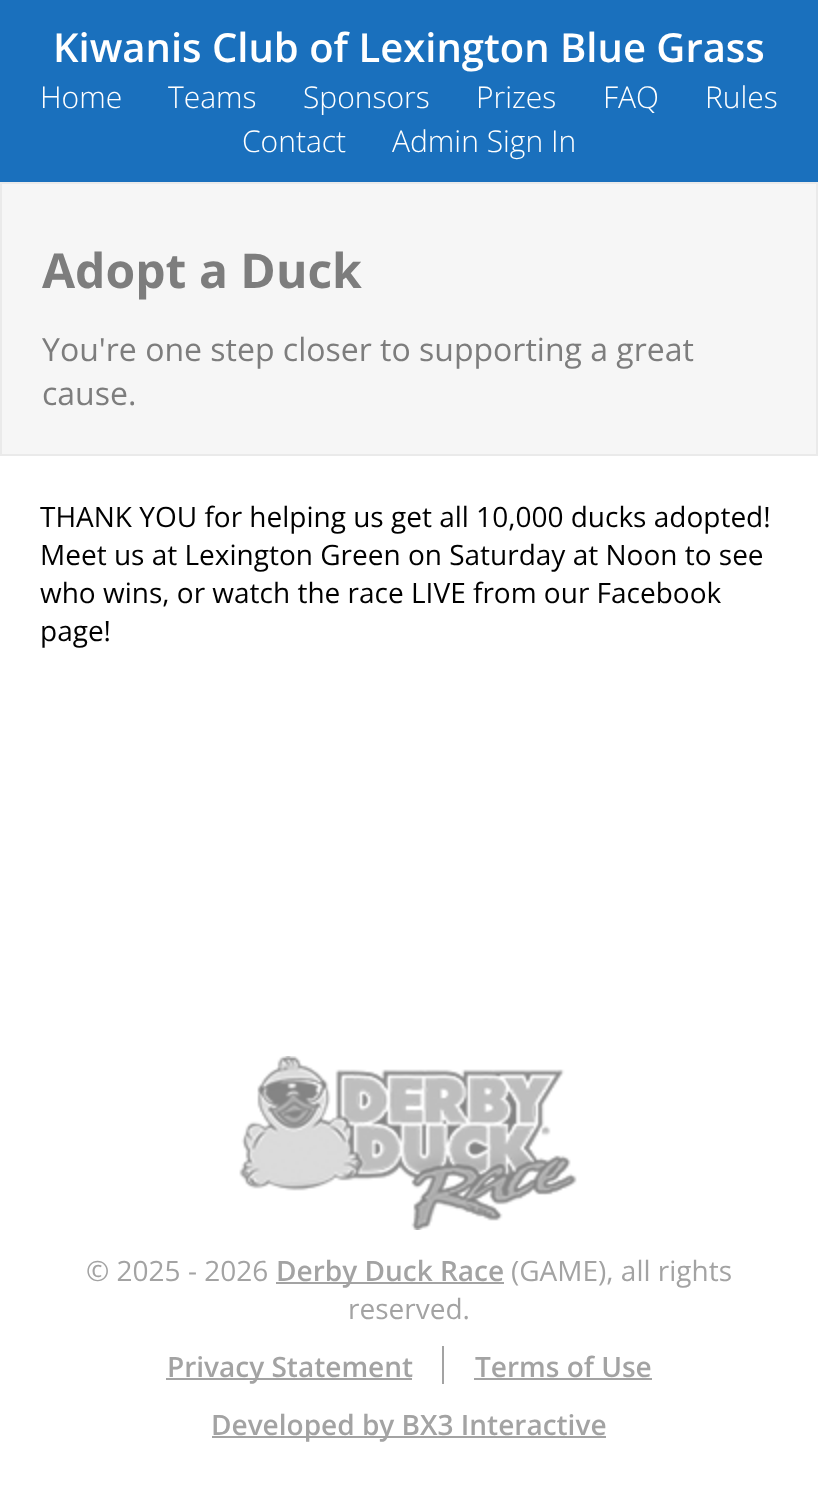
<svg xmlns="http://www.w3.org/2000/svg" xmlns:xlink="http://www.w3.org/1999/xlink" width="818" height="1508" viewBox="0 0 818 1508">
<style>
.cls-1{font:600 40px Open Sans;fill:#ffffff}
.cls-2{font:300 30px Open Sans;fill:#ffffff}
.cls-3{font:bold 48px Open Sans;fill:#7d7d7d}
.cls-4{font:32px Open Sans;fill:#7d7d7d}
.cls-5{font:28px Open Sans;fill:#000000}
.cls-6{font:28px Open Sans;fill:#a3a3a3}
.cls-7{font:600 28px Open Sans;fill:#a3a3a3}
</style>
<rect width="100%" height="100%" fill="#ffffff"/>
<rect fill="#1a70bd" x="0" y="0" width="818" height="182"/>
<rect fill="#f6f6f6" stroke="#eaeaea" stroke-width="2" x="1" y="183" width="816" height="272"/>
<image xlink:href="image0.png" x="239" y="1056" width="338" height="174"/>
<rect fill="#a3a3a3" x="276" y="1282" width="228" height="2"/>
<rect fill="#a3a3a3" x="166" y="1378" width="246" height="2"/>
<rect fill="#a3a3a3" x="442" y="1346" width="2" height="38"/>
<rect fill="#a3a3a3" x="474" y="1378" width="178" height="2"/>
<rect fill="#a3a3a3" x="212" y="1436" width="394" height="2"/>
<text class="cls-1" x="53" y="62">Kiwanis Club of Lexington Blue Grass</text>
<text class="cls-2" x="40" y="108">Home</text>
<text class="cls-2" x="168" y="108">Teams</text>
<text class="cls-2" x="303" y="108">Sponsors</text>
<text class="cls-2" x="476" y="108">Prizes</text>
<text class="cls-2" x="603" y="108">FAQ</text>
<text class="cls-2" x="705" y="108">Rules</text>
<text class="cls-2" x="242" y="152">Contact</text>
<text class="cls-2" x="392" y="152">Admin Sign In</text>
<text class="cls-3" x="42" y="288">Adopt a Duck</text>
<text class="cls-4"><tspan x="42" y="361">You're one step closer to supporting a great</tspan><tspan x="42" y="405">cause.</tspan></text>
<text class="cls-5"><tspan x="40" y="527">THANK YOU for helping us get all 10,000 ducks adopted!</tspan><tspan x="40" y="565">Meet us at Lexington Green on Saturday at Noon to see</tspan><tspan x="40" y="603">who wins, or watch the race LIVE from our Facebook</tspan><tspan x="40" y="641">page!</tspan></text>
<text class="cls-6" x="86" y="1281">© 2025 - 2026</text>
<text class="cls-7" x="276" y="1281">Derby Duck Race</text>
<text class="cls-6" x="511" y="1281">(GAME), all rights</text>
<text class="cls-6" x="348" y="1319">reserved.</text>
<text class="cls-7" x="167" y="1377">Privacy Statement</text>
<text class="cls-7" x="475" y="1377">Terms of Use</text>
<text class="cls-7" x="211" y="1435">Developed by BX3 Interactive</text>
</svg>
